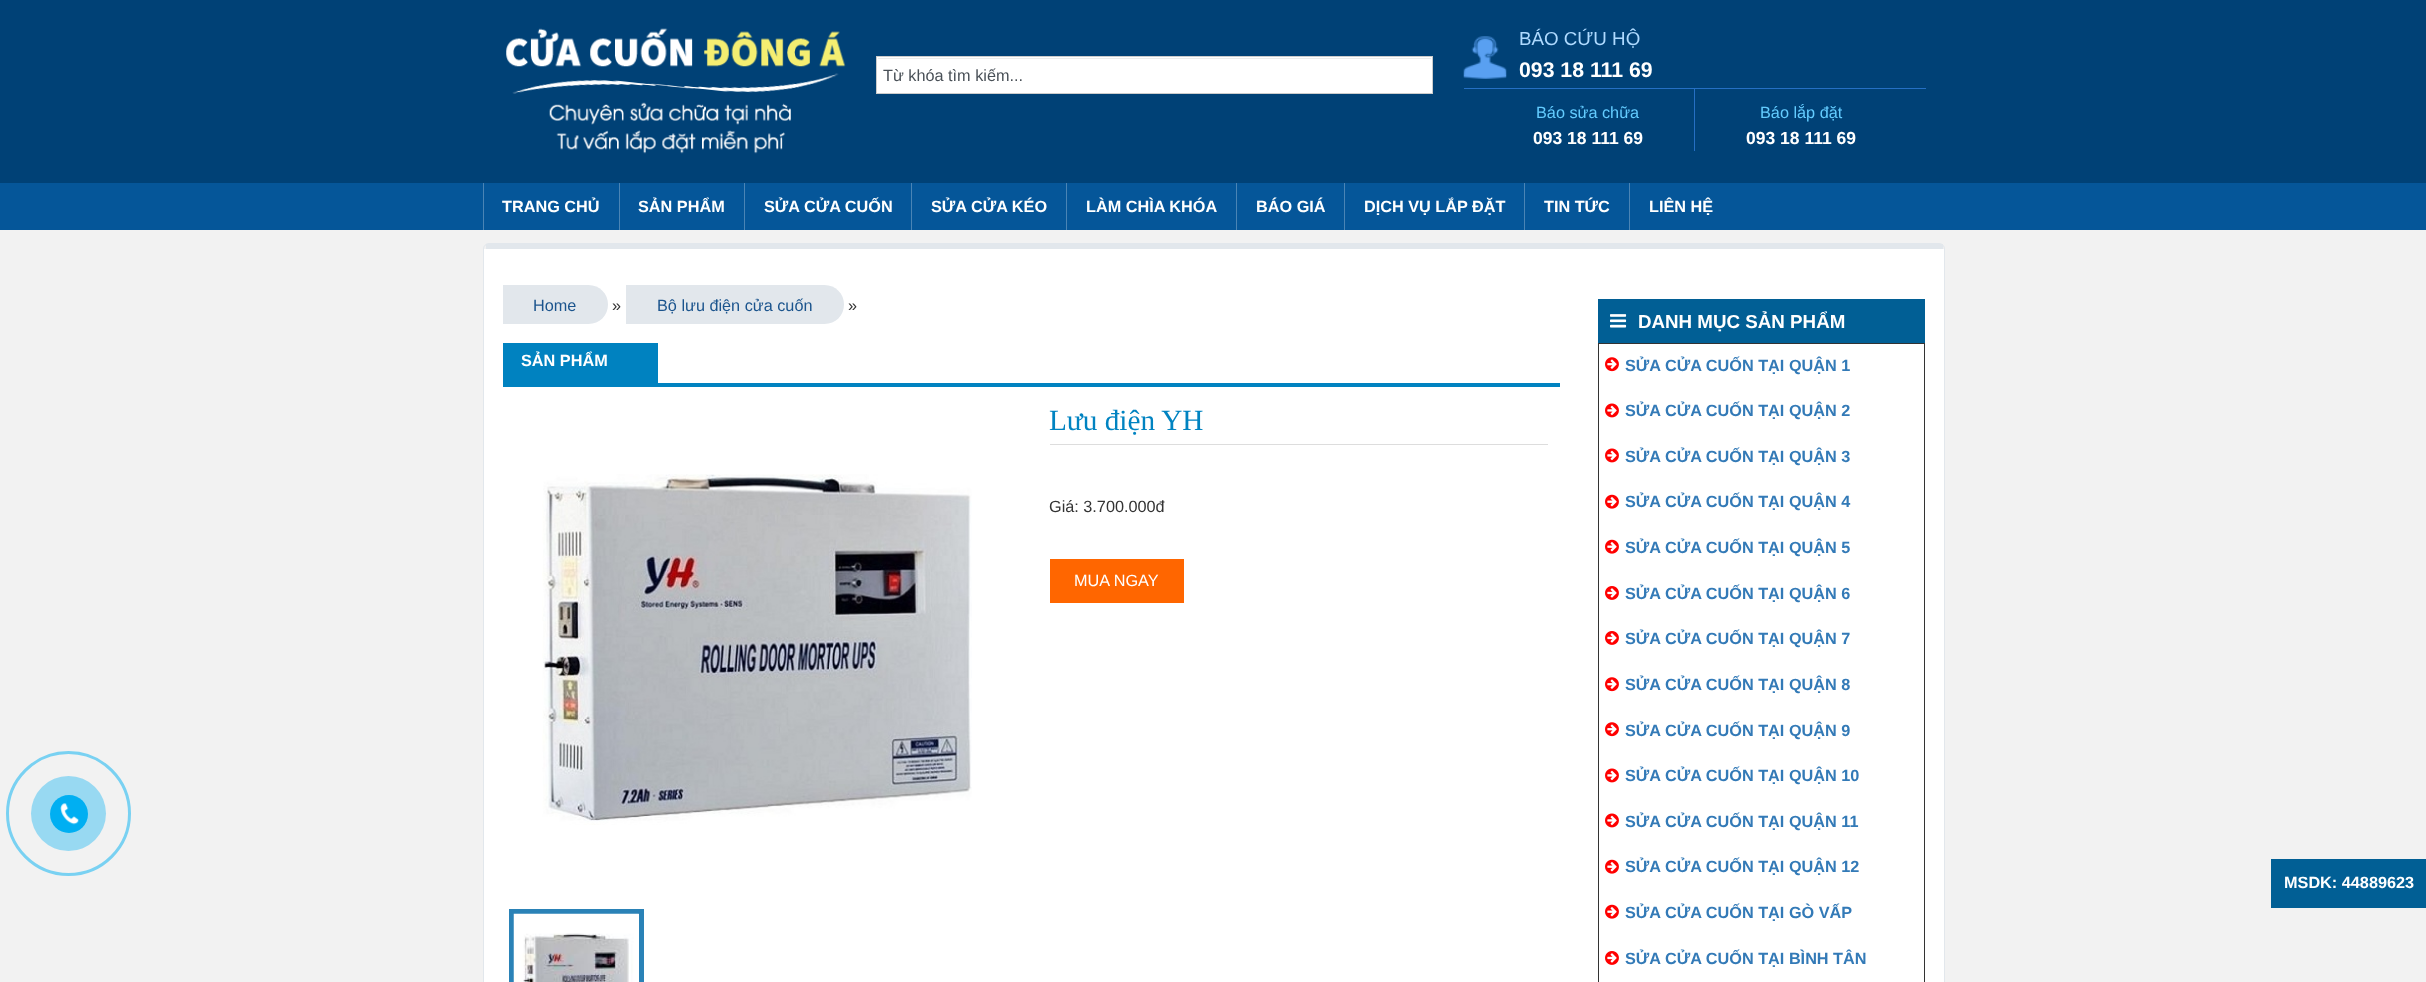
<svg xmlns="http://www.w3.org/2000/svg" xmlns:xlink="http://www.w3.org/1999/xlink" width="2426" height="982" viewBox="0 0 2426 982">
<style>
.cls-1{font:16.25px Liberation Sans;fill:#495057}
.cls-2{font:18.75px Liberation Sans;fill:#aedaff}
.cls-3{font:bold 21.25px Liberation Sans;fill:#ffffff}
.cls-4{font:16.25px Liberation Sans;fill:#63ccff}
.cls-5{font:bold 17.5px Liberation Sans;fill:#ffffff}
.cls-6{font:bold 16.25px Liberation Sans;fill:#ffffff}
.cls-7{font:16.25px Liberation Sans;fill:#1b548d}
.cls-8{font:16.25px Liberation Sans;fill:#333333}
.cls-9{font:29.25px Liberation Serif;fill:#0083c1}
.cls-10{font:16.25px Liberation Sans;fill:#ffffff}
.cls-11{font:bold 18.75px Liberation Sans;fill:#ffffff}
.cls-12{font:bold 16.25px Liberation Sans;fill:#337ab7}
</style>
<rect width="100%" height="100%" fill="#f2f2f2"/>
<rect fill="#004176" x="0" y="0" width="2426" height="183"/>
<image xlink:href="image0.png" x="506" y="28" width="340" height="126"/>
<rect fill="#ffffff" x="877" y="57" width="555" height="36"/>
<rect fill="#ececec" x="878" y="58" width="553" height="1"/>
<rect fill="none" stroke="#cccccc" x="876.5" y="56.5" width="556" height="37"/>
<image xlink:href="image1.png" x="1463" y="36" width="44" height="43"/>
<rect fill="#256fc3" x="1464" y="88" width="462" height="1"/>
<rect fill="#256fc3" x="1694" y="89" width="1" height="62"/>
<rect fill="#055699" x="0" y="183" width="2426" height="47"/>
<rect fill="#4a84b5" x="483" y="183" width="1" height="47"/>
<rect fill="#4a84b5" x="619" y="183" width="1" height="47"/>
<rect fill="#4a84b5" x="744" y="183" width="1" height="47"/>
<rect fill="#4a84b5" x="911" y="183" width="1" height="47"/>
<rect fill="#4a84b5" x="1066" y="183" width="1" height="47"/>
<rect fill="#4a84b5" x="1236" y="183" width="1" height="47"/>
<rect fill="#4a84b5" x="1344" y="183" width="1" height="47"/>
<rect fill="#4a84b5" x="1524" y="183" width="1" height="47"/>
<rect fill="#4a84b5" x="1629" y="183" width="1" height="47"/>
<path fill="#ffffff" d="M489 249H1944V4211C1944 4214 1942 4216 1939 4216H489C486 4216 484 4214 484 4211V249Z"/>
<rect fill="none" stroke="#e2e7ec" x="483.5" y="243.5" width="1461" height="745" rx="5.5"/>
<rect fill="#e2e7ec" x="486" y="244" width="1457" height="5"/>
<path fill="#e2e7ec" d="M503 285H588.5C599.5 285 608 293.5 608 304.5C608 315.5 599.5 324 588.5 324H503Z"/>
<path fill="#e2e7ec" d="M626 285H824.5C835.5 285 844 293.5 844 304.5C844 315.5 835.5 324 824.5 324H626Z"/>
<rect fill="#0082c0" x="503" y="383" width="1057" height="4"/>
<rect fill="#0082c0" x="503" y="343" width="155" height="40"/>
<image xlink:href="image2.png" x="542" y="474" width="430" height="351"/>
<rect fill="none" stroke="#2a82b7" stroke-width="5" x="511.5" y="911.5" width="130" height="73"/>
<image xlink:href="image3.png" x="513" y="913" width="126" height="69"/>
<rect fill="#dddddd" x="1050" y="444" width="498" height="1"/>
<rect fill="#ff6600" x="1050" y="559" width="134" height="44"/>
<rect fill="#015f95" x="1598" y="299" width="327" height="44"/>
<image xlink:href="image4.png" x="1610" y="314" width="17" height="14"/>
<rect fill="none" stroke="#333333" x="1598.5" y="343.5" width="326" height="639"/>
<image xlink:href="image5.png" x="1605" y="357" width="14" height="15"/>
<image xlink:href="image6.png" x="1605" y="403" width="14" height="15"/>
<image xlink:href="image6.png" x="1605" y="448" width="14" height="15"/>
<image xlink:href="image7.png" x="1605" y="494" width="14" height="15"/>
<image xlink:href="image7.png" x="1605" y="539" width="14" height="15"/>
<image xlink:href="image8.png" x="1605" y="586" width="14" height="14"/>
<image xlink:href="image8.png" x="1605" y="631" width="14" height="14"/>
<image xlink:href="image5.png" x="1605" y="677" width="14" height="15"/>
<image xlink:href="image5.png" x="1605" y="722" width="14" height="15"/>
<image xlink:href="image6.png" x="1605" y="768" width="14" height="15"/>
<image xlink:href="image6.png" x="1605" y="813" width="14" height="15"/>
<image xlink:href="image7.png" x="1605" y="859" width="14" height="15"/>
<image xlink:href="image7.png" x="1605" y="904" width="14" height="15"/>
<image xlink:href="image8.png" x="1605" y="951" width="14" height="14"/>
<circle fill="none" stroke="#79d1f2" stroke-width="3" cx="68.5" cy="813.5" r="61"/>
<circle fill="#98d9f2" cx="68.5" cy="813.5" r="37.5"/>
<circle fill="#00aff2" cx="69" cy="814" r="19"/>
<image xlink:href="image9.png" x="60" y="803" width="19" height="22"/>
<rect fill="#015f95" x="2271" y="859" width="155" height="49"/>
<text class="cls-1" x="883" y="81">Từ khóa tìm kiếm...</text>
<text class="cls-2" x="1519" y="45">BÁO CỨU HỘ</text>
<text class="cls-3" x="1519" y="77">093 18 111 69</text>
<text class="cls-4" x="1536" y="118">Báo sửa chữa</text>
<text class="cls-5" x="1533" y="144">093 18 111 69</text>
<text class="cls-4" x="1760" y="118">Báo lắp đặt</text>
<text class="cls-5" x="1746" y="144">093 18 111 69</text>
<text class="cls-6" x="502" y="212">TRANG CHỦ</text>
<text class="cls-6" x="638" y="212">SẢN PHẨM</text>
<text class="cls-6" x="764" y="212">SỬA CỬA CUỐN</text>
<text class="cls-6" x="931" y="212">SỬA CỬA KÉO</text>
<text class="cls-6" x="1086" y="212">LÀM CHÌA KHÓA</text>
<text class="cls-6" x="1256" y="212">BÁO GIÁ</text>
<text class="cls-6" x="1364" y="212">DỊCH VỤ LẮP ĐẶT</text>
<text class="cls-6" x="1544" y="212">TIN TỨC</text>
<text class="cls-6" x="1649" y="212">LIÊN HỆ</text>
<text class="cls-7" x="533" y="311">Home</text>
<text class="cls-8" x="612" y="311">»</text>
<text class="cls-7" x="657" y="311">Bộ lưu điện cửa cuốn</text>
<text class="cls-8" x="848" y="311">»</text>
<text class="cls-6" x="521" y="366">SẢN PHẨM</text>
<text class="cls-9" x="1049" y="430">Lưu điện YH</text>
<text class="cls-8" x="1049" y="512">Giá: 3.700.000đ</text>
<text class="cls-10" x="1074" y="586">MUA NGAY</text>
<text class="cls-11" x="1638" y="328">DANH MỤC SẢN PHẨM</text>
<text class="cls-12" x="1625" y="371">SỬA CỬA CUỐN TẠI QUẬN 1</text>
<text class="cls-12" x="1625" y="416">SỬA CỬA CUỐN TẠI QUẬN 2</text>
<text class="cls-12" x="1625" y="462">SỬA CỬA CUỐN TẠI QUẬN 3</text>
<text class="cls-12" x="1625" y="507">SỬA CỬA CUỐN TẠI QUẬN 4</text>
<text class="cls-12" x="1625" y="553">SỬA CỬA CUỐN TẠI QUẬN 5</text>
<text class="cls-12" x="1625" y="599">SỬA CỬA CUỐN TẠI QUẬN 6</text>
<text class="cls-12" x="1625" y="644">SỬA CỬA CUỐN TẠI QUẬN 7</text>
<text class="cls-12" x="1625" y="690">SỬA CỬA CUỐN TẠI QUẬN 8</text>
<text class="cls-12" x="1625" y="736">SỬA CỬA CUỐN TẠI QUẬN 9</text>
<text class="cls-12" x="1625" y="781">SỬA CỬA CUỐN TẠI QUẬN 10</text>
<text class="cls-12" x="1625" y="827">SỬA CỬA CUỐN TẠI QUẬN 11</text>
<text class="cls-12" x="1625" y="872">SỬA CỬA CUỐN TẠI QUẬN 12</text>
<text class="cls-12" x="1625" y="918">SỬA CỬA CUỐN TẠI GÒ VẤP</text>
<text class="cls-12" x="1625" y="964">SỬA CỬA CUỐN TẠI BÌNH TÂN</text>
<text class="cls-6" x="2284" y="888">MSDK: 44889623</text>
</svg>
